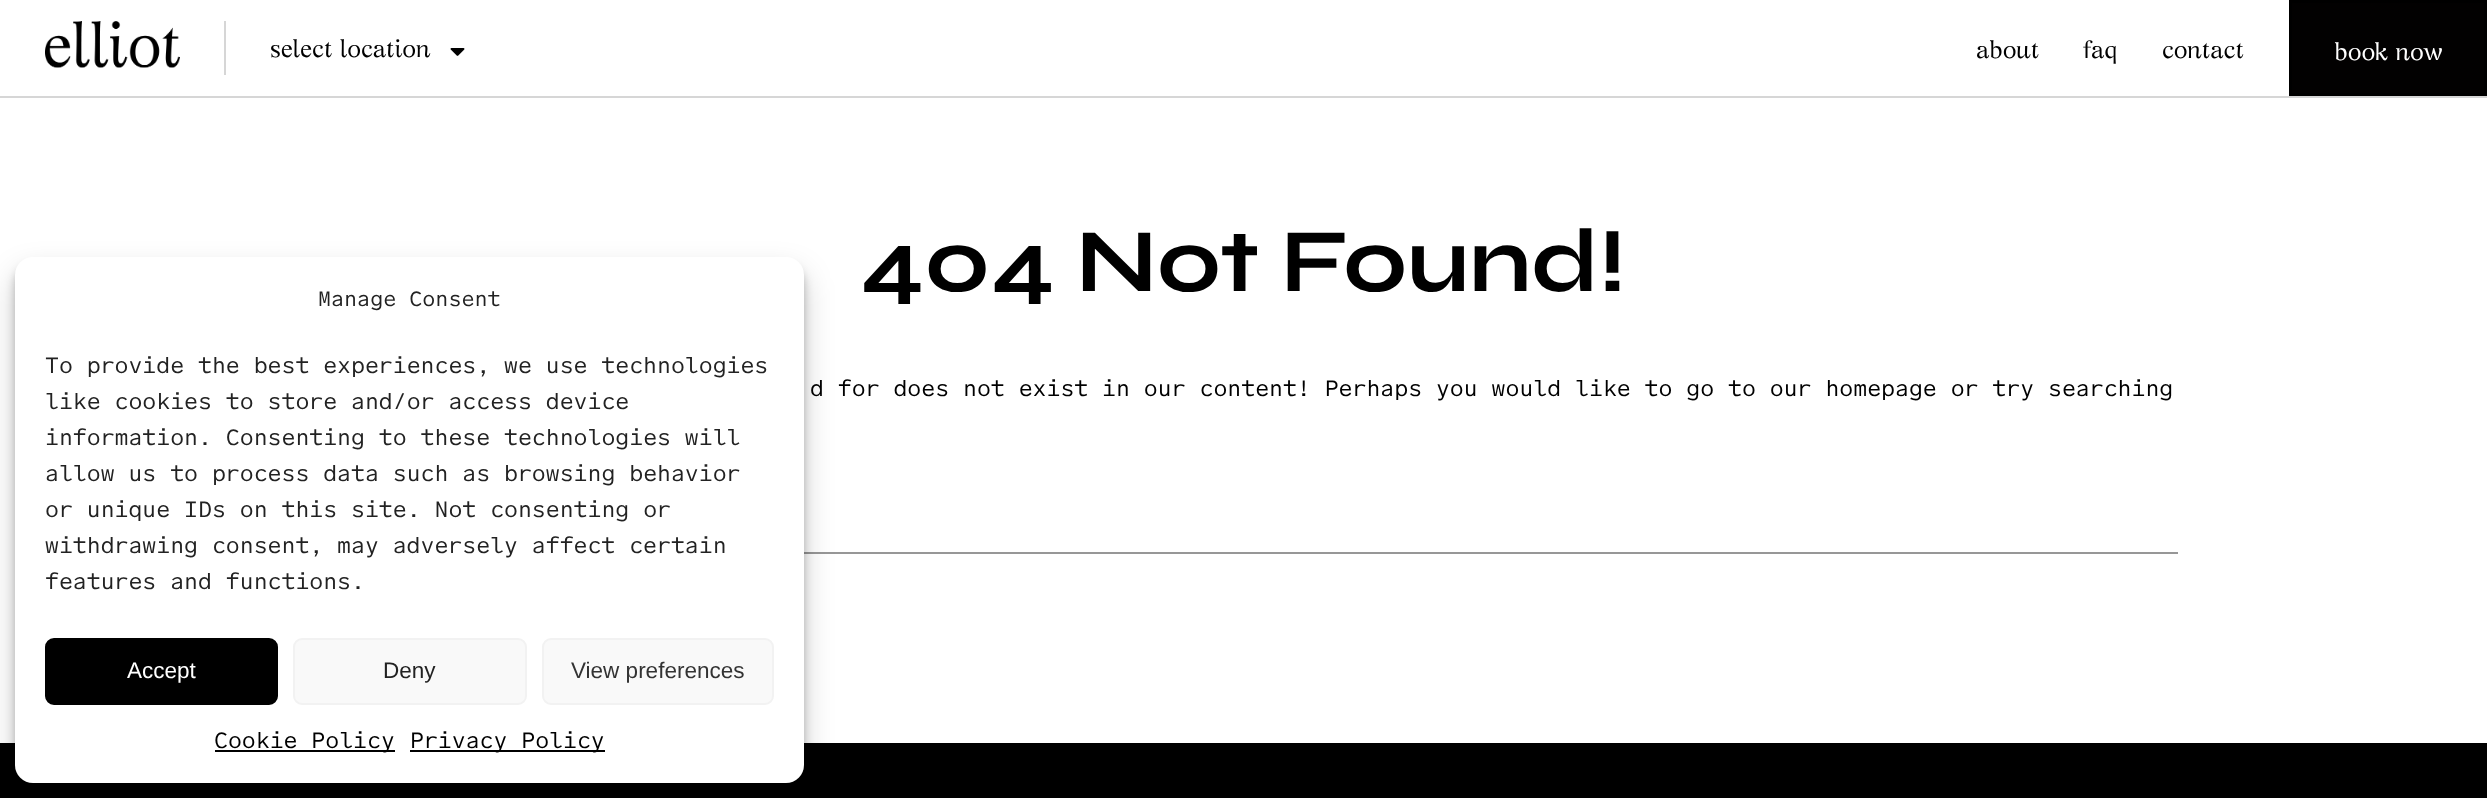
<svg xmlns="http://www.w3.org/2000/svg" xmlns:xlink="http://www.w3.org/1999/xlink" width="2487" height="798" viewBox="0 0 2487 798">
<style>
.cls-1{font:24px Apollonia;fill:#000000}
.cls-2{font:24px Apollonia;fill:#ffffff}
.cls-3{font:bold 90px Syne;fill:#000000}
.cls-4{font:900 24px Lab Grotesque;fill:#000000}
.cls-5{font:900 22.5px Lab Grotesque;fill:#222222}
.cls-6{font:900 24px Lab Grotesque;fill:#222222}
.cls-7{font:22.5px Liberation Sans;fill:#ffffff}
.cls-8{font:22.5px Liberation Sans;fill:#222222}
.cls-9{font:22.5px Liberation Sans;fill:#333333}
</style>
<rect width="100%" height="100%" fill="#ffffff"/>
<rect fill="#d6d6d6" x="0" y="96" width="2487" height="2"/>
<rect fill="#d6d6d6" x="224" y="21" width="2" height="54"/>
<image xlink:href="image0.png" x="45" y="21" width="135" height="47"/>
<image xlink:href="image1.png" x="450" y="48" width="15" height="8"/>
<rect fill="#020101" stroke="#000000" stroke-width="3" x="2290.5" y="1.5" width="195" height="93"/>
<rect fill="#979797" x="804" y="552" width="1374" height="2"/>
<rect fill="#000000" x="0" y="743" width="2487" height="55"/>
<rect fill="#000000" fill-opacity="0.23" filter="blur(4.5px)" x="15" y="266" width="789" height="526" rx="18"/>
<rect fill="#000000" fill-opacity="0.19" filter="blur(15px)" x="15" y="272" width="789" height="526" rx="18"/>
<rect fill="#ffffff" x="15" y="257" width="789" height="526" rx="18"/>
<rect fill="#000000" stroke="#000000" stroke-width="2" x="46" y="639" width="231" height="65" rx="8"/>
<rect fill="#f9f9f9" stroke="#f2f2f2" stroke-width="2" x="294" y="639" width="232" height="65" rx="8"/>
<rect fill="#f9f9f9" stroke="#f2f2f2" stroke-width="2" x="543" y="639" width="230" height="65" rx="8"/>
<rect fill="#000000" x="215" y="750" width="180" height="2"/>
<rect fill="#000000" x="410" y="750" width="195" height="2"/>
<text class="cls-1" x="270" y="57">select location</text>
<text class="cls-1" x="1976" y="58">about</text>
<text class="cls-1" x="2083" y="58">faq</text>
<text class="cls-1" x="2162" y="58">contact</text>
<text class="cls-2" x="2334" y="60">book now</text>
<text class="cls-3" x="860" y="291">404 Not Found!</text>
<text class="cls-4" x="810" y="396">d for does not exist in our content! Perhaps you would like to go to our homepage or try searching</text>
<text class="cls-5" x="318" y="306">Manage Consent</text>
<text class="cls-6"><tspan x="45" y="373">To provide the best experiences, we use technologies</tspan><tspan x="45" y="409">like cookies to store and/or access device</tspan><tspan x="45" y="445">information. Consenting to these technologies will</tspan><tspan x="45" y="481">allow us to process data such as browsing behavior</tspan><tspan x="45" y="517">or unique IDs on this site. Not consenting or</tspan><tspan x="45" y="553">withdrawing consent, may adversely affect certain</tspan><tspan x="45" y="589">features and functions.</tspan></text>
<text class="cls-7" x="127" y="678">Accept</text>
<text class="cls-8" x="383" y="678">Deny</text>
<text class="cls-9" x="571" y="678">View preferences</text>
<text class="cls-4" x="214" y="748">Cookie Policy</text>
<text class="cls-4" x="410" y="748">Privacy Policy</text>
</svg>
